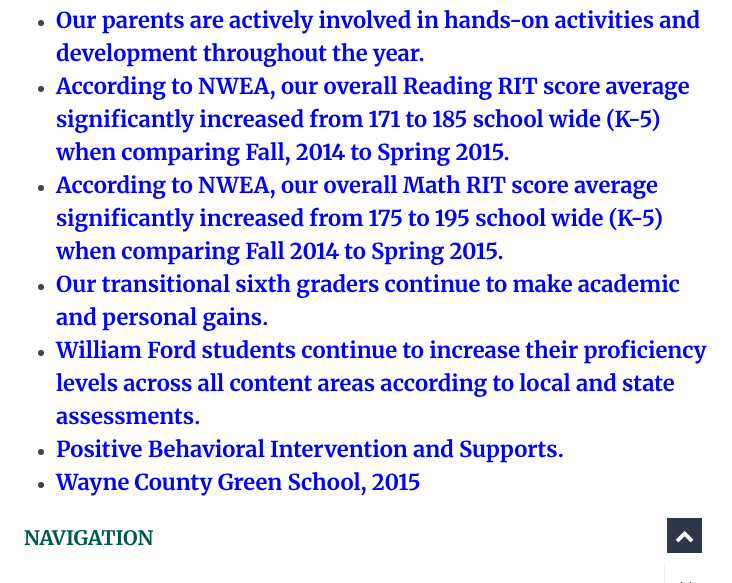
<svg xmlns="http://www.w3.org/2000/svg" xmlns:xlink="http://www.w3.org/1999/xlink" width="732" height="583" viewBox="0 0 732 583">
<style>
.cls-1{font:300 22px Merriweather;fill:#0000ff}
.cls-2{font:300 20px Merriweather;fill:#00594f}
</style>
<rect width="100%" height="100%" fill="#ffffff"/>
<circle fill="#444444" cx="41" cy="23" r="3"/>
<circle fill="#444444" cx="41" cy="89" r="3"/>
<circle fill="#444444" cx="41" cy="188" r="3"/>
<circle fill="#444444" cx="41" cy="287" r="3"/>
<circle fill="#444444" cx="41" cy="353" r="3"/>
<circle fill="#444444" cx="41" cy="452" r="3"/>
<circle fill="#444444" cx="41" cy="485" r="3"/>
<rect fill="#edf2f7" x="664" y="563" width="1" height="20"/>
<image xlink:href="image0.png" x="680" y="582" width="12" height="1"/>
<rect fill="#2d3748" x="667" y="518" width="35" height="35"/>
<image xlink:href="image1.png" x="676" y="531" width="18" height="12"/>
<text class="cls-1"><tspan x="56" y="28">Our parents are actively involved in hands-on activities and</tspan><tspan x="56" y="61">development throughout the year.</tspan><tspan x="56" y="94">According to NWEA, our overall Reading RIT score average</tspan><tspan x="56" y="127">significantly increased from 171 to 185 school wide (K-5)</tspan><tspan x="56" y="160">when comparing Fall, 2014 to Spring 2015.</tspan><tspan x="56" y="193">According to NWEA, our overall Math RIT score average</tspan><tspan x="56" y="226">significantly increased from 175 to 195 school wide (K-5)</tspan><tspan x="56" y="259">when comparing Fall 2014 to Spring 2015.</tspan><tspan x="56" y="292">Our transitional sixth graders continue to make academic</tspan><tspan x="56" y="325">and personal gains.</tspan><tspan x="56" y="358">William Ford students continue to increase their proficiency</tspan><tspan x="56" y="391">levels across all content areas according to local and state</tspan><tspan x="56" y="424">assessments.</tspan><tspan x="56" y="457">Positive Behavioral Intervention and Supports.</tspan><tspan x="56" y="490">Wayne County Green School, 2015</tspan></text>
<text class="cls-2" x="24" y="545">NAVIGATION</text>
</svg>
